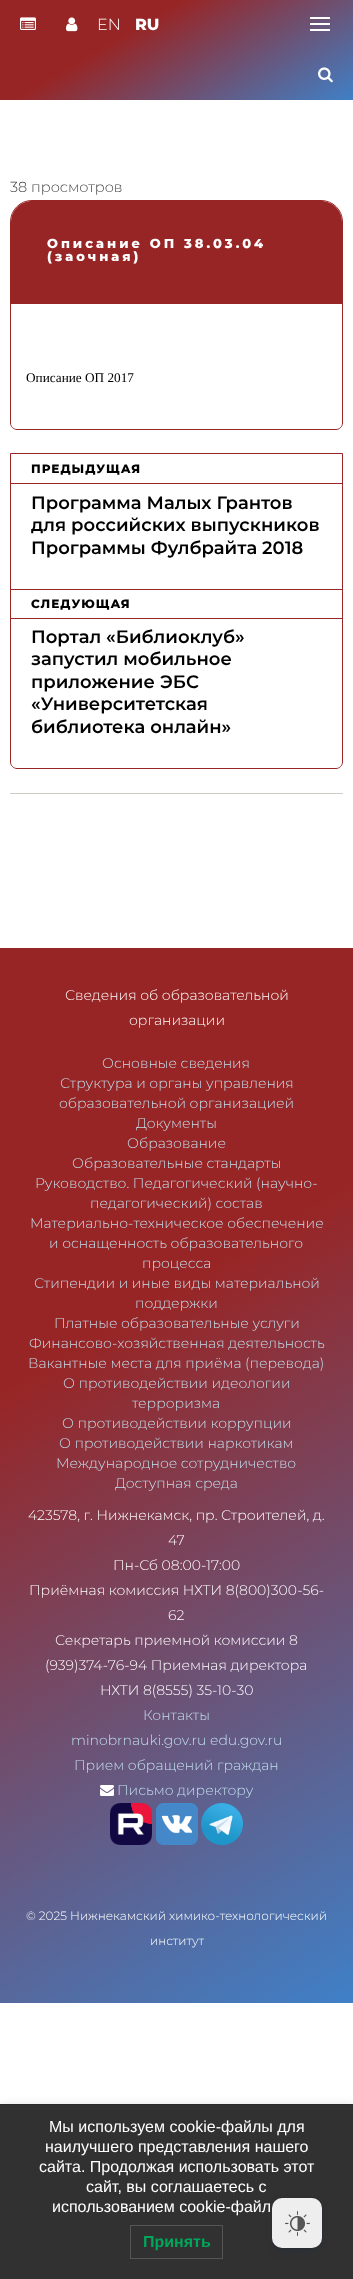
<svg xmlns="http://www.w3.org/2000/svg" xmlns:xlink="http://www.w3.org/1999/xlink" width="353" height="2279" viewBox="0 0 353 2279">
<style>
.cls-1{font:300 16px Montserrat;fill:#ffffff}
.cls-2{font:800 16px Montserrat;fill:#ffffff}
.cls-3{font:300 14.5px Montserrat;fill:#434343}
.cls-4{font:800 13px Montserrat;letter-spacing:3px;fill:#ffffff}
.cls-5{font:13.25px Liberation Serif;fill:#000000}
.cls-6{font:800 12px Montserrat;letter-spacing:1px;fill:#000000}
.cls-7{font:600 18px Montserrat;fill:#000000}
.cls-8{font:300 14px Montserrat;fill:#ffffff}
.cls-9{font:300 14px Montserrat;fill:#c3dfed}
.cls-10{font:300 12px Montserrat;fill:#ffffff}
.cls-11{font:16px Liberation Sans;fill:#ffffff}
.cls-12{font:bold 16px Liberation Sans;fill:#00a65a}
</style>
<defs>
<linearGradient id="g1" gradientUnits="userSpaceOnUse" x1="108" y1="-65" x2="245" y2="165"><stop offset="0" stop-color="#982525"/><stop offset="0.35" stop-color="#982525"/><stop offset="1" stop-color="#3f80c7"/></linearGradient>
<linearGradient id="g2" gradientUnits="userSpaceOnUse" x1="-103" y1="1010" x2="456" y2="1941"><stop offset="0" stop-color="#982525"/><stop offset="0.35" stop-color="#982525"/><stop offset="1" stop-color="#3f80c7"/></linearGradient>
</defs>
<rect width="100%" height="100%" fill="#ffffff"/>
<rect fill="url(#g1)" x="0" y="0" width="353" height="100"/>
<image xlink:href="image0.png" x="20" y="17" width="16" height="13"/>
<image xlink:href="image1.png" x="66" y="17" width="12" height="15"/>
<rect fill="#ffffff" x="310" y="23" width="20" height="2"/>
<rect fill="#ffffff" x="310" y="17" width="20" height="2"/>
<rect fill="#ffffff" x="310" y="29" width="20" height="2"/>
<image xlink:href="image2.png" x="318" y="67" width="15" height="16"/>
<path fill="none" stroke="#982525" d="M32 200.5H321C333 200.5 342.5 210 342.5 222V423C342.5 426.5 339.5 429.5 336 429.5H17C13.5 429.5 10.5 426.5 10.5 423V222C10.5 210 20 200.5 32 200.5Z"/>
<path fill="#982525" d="M32 201H321C332.5 201 342 210.5 342 222V304H11V222C11 210.5 20.5 201 32 201Z"/>
<path fill="none" stroke="#982525" d="M10.5 453.5H342.5V762C342.5 765.5 339.5 768.5 336 768.5H17C13.5 768.5 10.5 765.5 10.5 762Z"/>
<rect fill="#982525" x="11" y="483" width="331" height="1"/>
<rect fill="#982525" x="11" y="589" width="331" height="1"/>
<rect fill="#982525" x="11" y="618" width="331" height="1"/>
<rect fill="#cfccc7" x="10" y="793" width="333" height="1"/>
<rect fill="url(#g2)" x="0" y="948" width="353" height="1055"/>
<image xlink:href="image3.png" x="100" y="1785" width="14" height="11"/>
<image xlink:href="image4.png" x="110" y="1803" width="42" height="42"/>
<image xlink:href="image5.png" x="156" y="1803" width="42" height="42"/>
<image xlink:href="image6.png" x="201" y="1803" width="42" height="42"/>
<rect fill="#000000" fill-opacity="0.1" filter="blur(4px)" x="0" y="2104" width="353" height="175"/>
<rect fill="#313131" x="0" y="2105" width="353" height="174"/>
<rect fill="#2b2b2b" x="0" y="2104" width="353" height="1"/>
<rect fill="none" stroke="#555555" x="130.5" y="2225.5" width="92" height="33"/>
<rect fill="none" stroke="#091e42" stroke-opacity="0.08" x="271.5" y="2197.5" width="51" height="51" rx="10.5"/>
<rect fill="#091e42" fill-opacity="0.25" filter="blur(4px)" x="274" y="2204" width="46" height="46" rx="8"/>
<rect fill="#eeeeee" x="272" y="2198" width="50" height="50" rx="10"/>
<image xlink:href="image7.png" x="285" y="2211" width="25" height="25"/>
<text class="cls-1" x="97" y="30">EN</text>
<text class="cls-2" x="135" y="30">RU</text>
<text class="cls-3" x="10" y="192">38 просмотров</text>
<text class="cls-4"><tspan x="47" y="248">Описание ОП 38.03.04</tspan><tspan x="47" y="261">(заочная)</tspan></text>
<text class="cls-5" x="26" y="382">Описание ОП 2017</text>
<text class="cls-6" x="31" y="473">ПРЕДЫДУЩАЯ</text>
<text class="cls-7"><tspan x="31" y="509">Программа Малых Грантов</tspan><tspan x="31" y="531">для российских выпускников</tspan><tspan x="31" y="554">Программы Фулбрайта 2018</tspan></text>
<text class="cls-6" x="31" y="608">СЛЕДУЮЩАЯ</text>
<text class="cls-7"><tspan x="31" y="643">Портал «Библиоклуб»</tspan><tspan x="31" y="665">запустил мобильное</tspan><tspan x="31" y="688">приложение ЭБС</tspan><tspan x="31" y="710">«Университетская</tspan><tspan x="31" y="733">библиотека онлайн»</tspan></text>
<text class="cls-8" x="65" y="1000">Сведения об образовательной</text>
<text class="cls-8" x="129" y="1025">организации</text>
<text class="cls-9" x="102" y="1068">Основные сведения</text>
<text class="cls-9" x="60" y="1088">Структура и органы управления</text>
<text class="cls-9" x="59" y="1108">образовательной организацией</text>
<text class="cls-9" x="136" y="1128">Документы</text>
<text class="cls-9" x="127" y="1148">Образование</text>
<text class="cls-9" x="72" y="1168">Образовательные стандарты</text>
<text class="cls-9" x="35" y="1188">Руководство. Педагогический (научно-</text>
<text class="cls-9" x="90" y="1208">педагогический) состав</text>
<text class="cls-9" x="30" y="1228">Материально-техническое обеспечение</text>
<text class="cls-9" x="49" y="1248">и оснащенность образовательного</text>
<text class="cls-9" x="142" y="1268">процесса</text>
<text class="cls-9" x="34" y="1288">Стипендии и иные виды материальной</text>
<text class="cls-9" x="135" y="1308">поддержки</text>
<text class="cls-9" x="54" y="1328">Платные образовательные услуги</text>
<text class="cls-9" x="29" y="1348">Финансово-хозяйственная деятельность</text>
<text class="cls-9" x="28" y="1368">Вакантные места для приёма (перевода)</text>
<text class="cls-9" x="63" y="1388">О противодействии идеологии</text>
<text class="cls-9" x="132" y="1408">терроризма</text>
<text class="cls-9" x="62" y="1428">О противодействии коррупции</text>
<text class="cls-9" x="59" y="1448">О противодействии наркотикам</text>
<text class="cls-9" x="56" y="1468">Международное сотрудничество</text>
<text class="cls-9" x="115" y="1488">Доступная среда</text>
<text class="cls-8" x="28" y="1520">423578, г. Нижнекамск, пр. Строителей, д.</text>
<text class="cls-8" x="168" y="1545">47</text>
<text class="cls-8" x="113" y="1570">Пн-Сб 08:00-17:00</text>
<text class="cls-8" x="29" y="1595">Приёмная комиссия НХТИ 8(800)300-56-</text>
<text class="cls-8" x="168" y="1620">62</text>
<text class="cls-8" x="55" y="1645">Секретарь приемной комиссии 8</text>
<text class="cls-8" x="45" y="1670">(939)374-76-94 Приемная директора</text>
<text class="cls-8" x="100" y="1695">НХТИ 8(8555) 35-10-30</text>
<text class="cls-9" x="143" y="1720">Контакты</text>
<text class="cls-9" x="71" y="1745">minobrnauki.gov.ru edu.gov.ru</text>
<text class="cls-9" x="74" y="1770">Прием обращений граждан</text>
<text class="cls-9" x="117" y="1795">Письмо директору</text>
<text class="cls-10" x="26" y="1920">© 2025 Нижнекамский химико-технологический</text>
<text class="cls-10" x="150" y="1945">институт</text>
<text class="cls-11" x="49" y="2132">Мы используем cookie-файлы для</text>
<text class="cls-11" x="45" y="2152">наилучшего представления нашего</text>
<text class="cls-11" x="39" y="2172">сайта. Продолжая использовать этот</text>
<text class="cls-11" x="86" y="2192">сайт, вы соглашаетесь с</text>
<text class="cls-11" x="52" y="2212">использованием cookie-файл</text>
<text class="cls-12" x="143" y="2247">Принять</text>
</svg>
